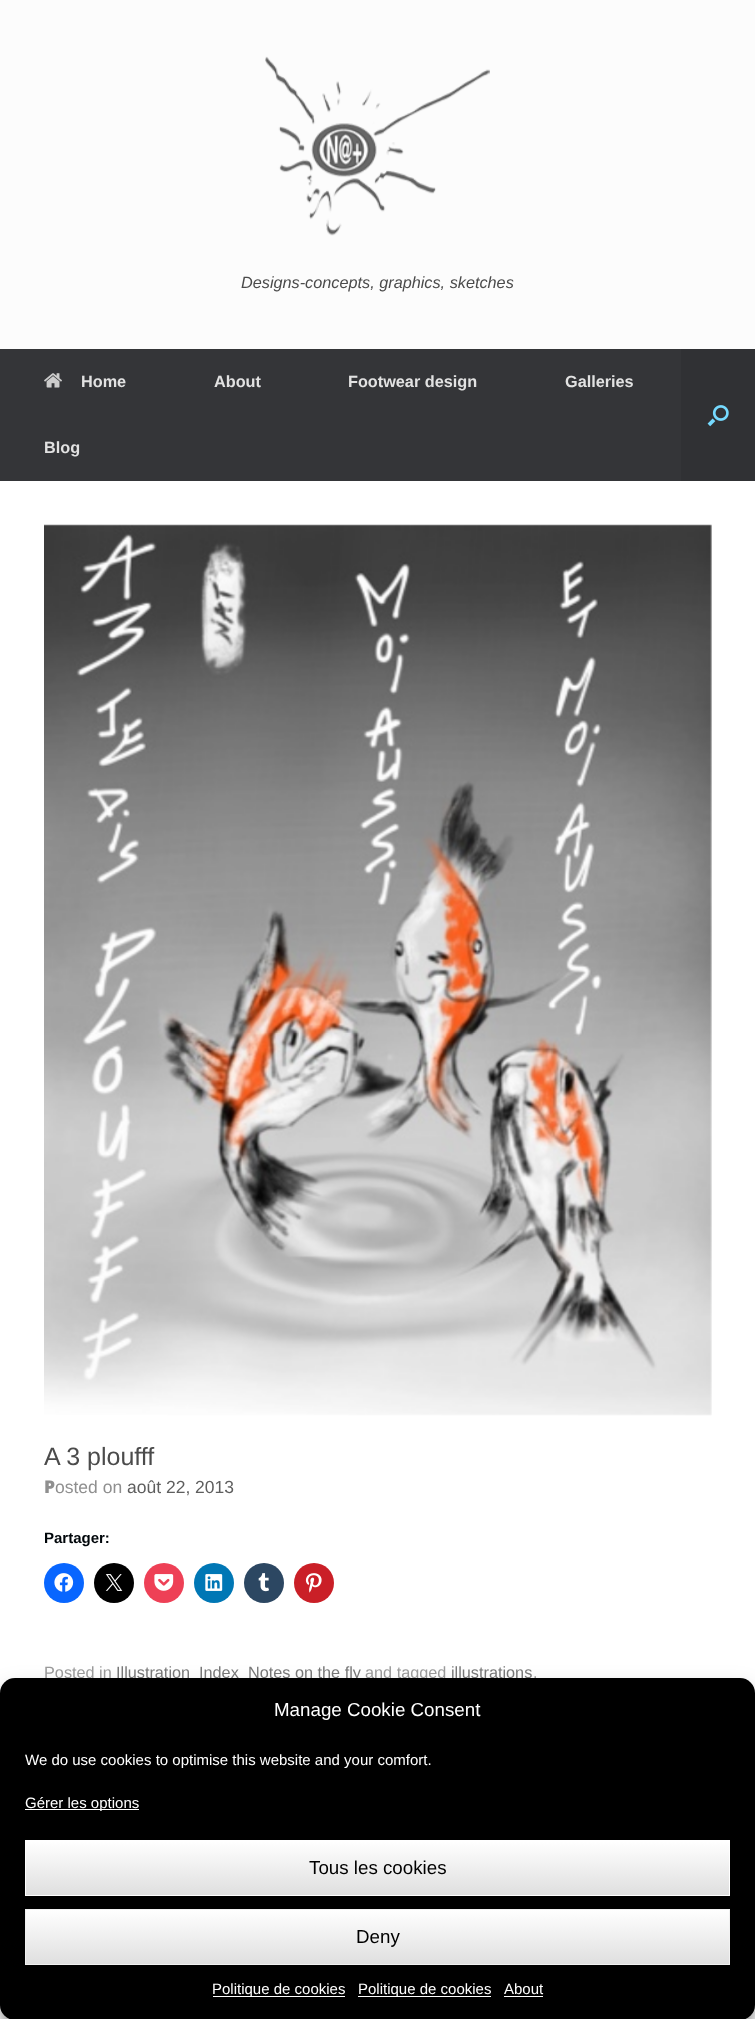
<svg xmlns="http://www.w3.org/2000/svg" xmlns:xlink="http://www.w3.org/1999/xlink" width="755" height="2019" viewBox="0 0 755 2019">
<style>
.cls-1{font:italic 16.25px Liberation Sans;fill:#4b4b4b}
.cls-2{font:bold 16.25px Liberation Sans;fill:#e2e2e2}
.cls-3{font:25px Liberation Sans;fill:#4b4b4b}
.cls-4{font:900 17.5px Noto Sans;fill:#8f8f8f}
.cls-5{font:17.5px Liberation Sans;fill:#8f8f8f}
.cls-6{font:17.5px Liberation Sans;fill:#5e5e5e}
.cls-7{font:bold 15px Liberation Sans;fill:#00060a}
.cls-8{font:16.25px Liberation Sans;fill:#999999}
.cls-9{font:16.25px Liberation Sans;fill:#777777}
.cls-10{font:18.75px Liberation Sans;fill:#ffffff}
.cls-11{font:15px Liberation Sans;fill:#ffffff}
.cls-12{font:18.75px Liberation Sans;fill:#000000}
</style>
<defs>
<linearGradient id="g1" gradientUnits="userSpaceOnUse" x1="26" y1="1895" x2="26" y2="1841"><stop offset="0" stop-color="#dfdfdf"/><stop offset="1" stop-color="#ffffff"/></linearGradient>
<linearGradient id="g2" gradientUnits="userSpaceOnUse" x1="26" y1="1964" x2="26" y2="1910"><stop offset="0" stop-color="#dfdfdf"/><stop offset="1" stop-color="#ffffff"/></linearGradient>
</defs>
<rect width="100%" height="100%" fill="#fcfcfc"/>
<image xlink:href="image0.png" x="265" y="56" width="225" height="180"/>
<rect fill="#343538" x="0" y="349" width="681" height="132"/>
<image xlink:href="image1.png" x="44" y="373" width="18" height="15"/>
<rect fill="#303134" x="681" y="349" width="74" height="132"/>
<image xlink:href="image2.png" x="707" y="405" width="22" height="22"/>
<rect fill="#ffffff" x="0" y="481" width="755" height="1538"/>
<image xlink:href="image3.png" x="44" y="524" width="668" height="892"/>
<circle fill="#0866ff" cx="64" cy="1583" r="20"/>
<image xlink:href="image4.png" x="54" y="1573" width="20" height="19"/>
<circle fill="#000000" cx="114" cy="1583" r="20"/>
<image xlink:href="image5.png" x="105" y="1574" width="18" height="17"/>
<circle fill="#ee4056" cx="164" cy="1583" r="20"/>
<image xlink:href="image6.png" x="154" y="1574" width="20" height="17"/>
<circle fill="#0077b5" cx="214" cy="1583" r="20"/>
<image xlink:href="image7.png" x="205" y="1574" width="18" height="17"/>
<circle fill="#2c4762" cx="264" cy="1583" r="20"/>
<image xlink:href="image8.png" x="258" y="1573" width="11" height="19"/>
<circle fill="#ca1f27" cx="314" cy="1583" r="20"/>
<image xlink:href="image9.png" x="305" y="1573" width="17" height="20"/>
<rect fill="#000000" fill-opacity="0.23" filter="blur(4px)" x="0" y="1685" width="755" height="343" rx="15"/>
<rect fill="#000000" fill-opacity="0.19" filter="blur(12.5px)" x="0" y="1690" width="755" height="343" rx="15"/>
<text class="cls-1" x="241" y="288">Designs-concepts, graphics, sketches</text>
<text class="cls-2" x="81" y="387">Home</text>
<text class="cls-2" x="214" y="387">About</text>
<text class="cls-2" x="348" y="387">Footwear design</text>
<text class="cls-2" x="565" y="387">Galleries</text>
<text class="cls-2" x="44" y="453">Blog</text>
<text class="cls-3" x="44" y="1465">A 3 ploufff</text>
<text class="cls-4" x="44" y="1493">P</text>
<text class="cls-5" x="55" y="1493">osted on</text>
<text class="cls-6" x="127" y="1493">août 22, 2013</text>
<text class="cls-7" x="44" y="1543">Partager:</text>
<text class="cls-8" x="44" y="1678">Posted in</text>
<text class="cls-9" x="116" y="1678">Illustration</text>
<text class="cls-9" x="199" y="1678">Index</text>
<text class="cls-9" x="248" y="1678">Notes on the fly</text>
<text class="cls-8" x="365" y="1678">and tagged</text>
<text class="cls-9" x="451" y="1678">illustrations</text>
<text class="cls-8" x="533" y="1678">.</text>
<rect fill="#000000" x="0" y="1678" width="755" height="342" rx="15"/>
<text class="cls-10" x="274" y="1716">Manage Cookie Consent</text>
<text class="cls-11" x="25" y="1765">We do use cookies to optimise this website and your comfort.</text>
<rect fill="#ffffff" x="25" y="1809" width="114" height="1"/>
<text class="cls-11" x="25" y="1808">Gérer les options</text>
<rect fill="url(#g1)" x="26" y="1841" width="703" height="54"/>
<rect fill="none" stroke="#ffffff" x="25.5" y="1840.5" width="704" height="55"/>
<text class="cls-12" x="309" y="1874">Tous les cookies</text>
<rect fill="url(#g2)" x="26" y="1910" width="703" height="54"/>
<rect fill="none" stroke="#f1f1f1" x="25.5" y="1909.5" width="704" height="55"/>
<text class="cls-12" x="356" y="1943">Deny</text>
<rect fill="#ffffff" x="213" y="1996" width="132" height="1"/>
<text class="cls-11" x="212" y="1994">Politique de cookies</text>
<rect fill="#ffffff" x="358" y="1996" width="133" height="1"/>
<text class="cls-11" x="358" y="1994">Politique de cookies</text>
<text class="cls-11" x="504" y="1994">About</text>
<rect fill="#ffffff" x="504" y="1996" width="39" height="1"/>
</svg>
